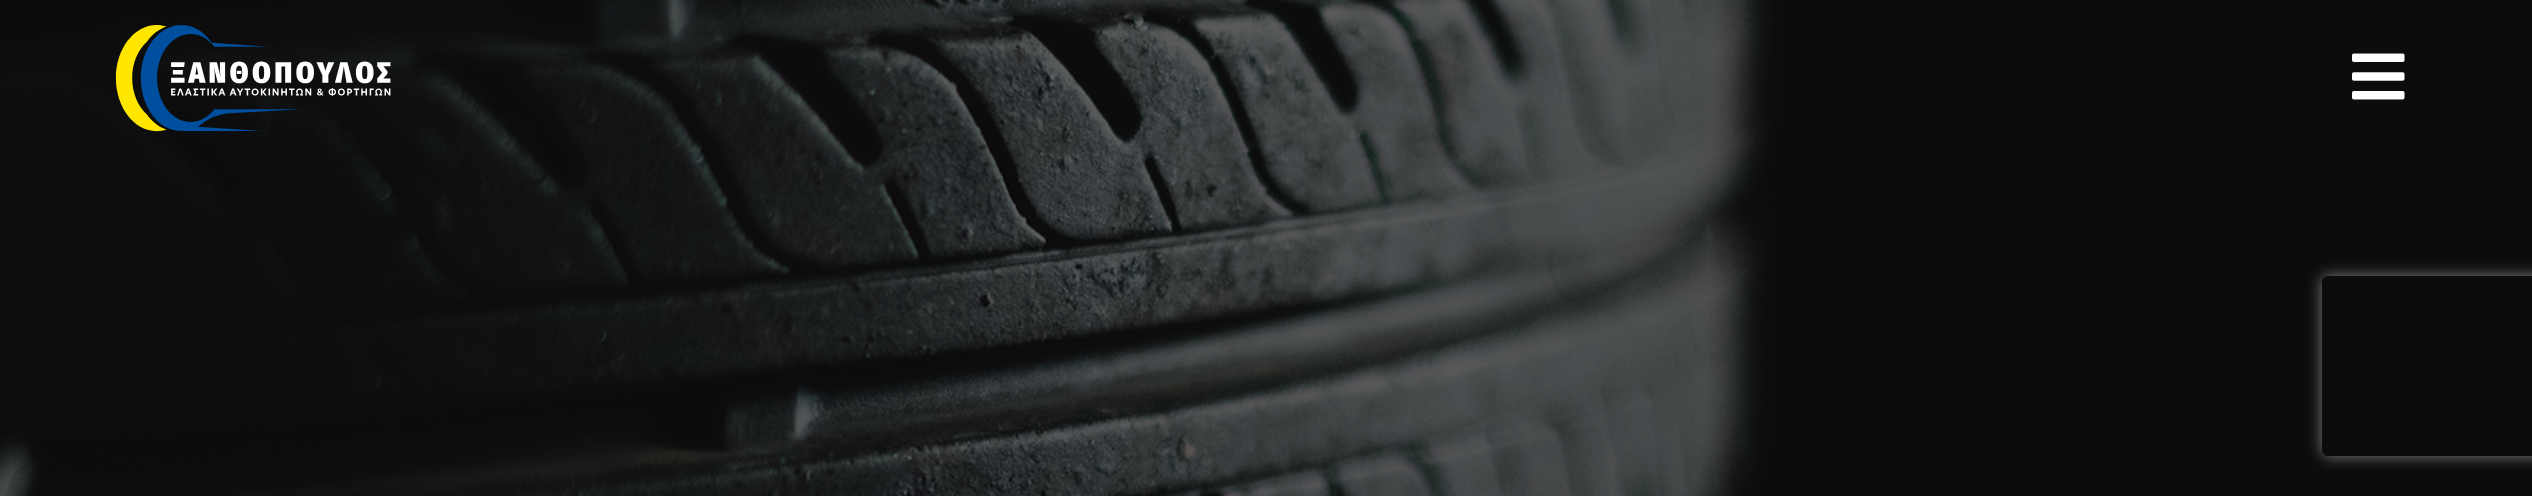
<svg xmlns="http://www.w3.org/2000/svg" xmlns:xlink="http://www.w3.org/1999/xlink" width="2532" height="496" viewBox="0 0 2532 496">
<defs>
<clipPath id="clip1"><path d="M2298 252H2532V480H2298ZM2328 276H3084C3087.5 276 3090 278.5 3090 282V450C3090 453.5 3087.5 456 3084 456H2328C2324.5 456 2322 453.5 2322 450V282C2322 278.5 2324.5 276 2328 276Z" clip-rule="evenodd"/></clipPath>
</defs>
<rect width="100%" height="100%" fill="#ffffff"/>
<image xlink:href="image0.png" x="0" y="0" width="2532" height="496"/>
<image xlink:href="image1.png" x="115" y="25" width="276" height="107"/>
<image xlink:href="image2.png" x="2352" y="53" width="53" height="47"/>
<g clip-path="url(#clip1)">
<rect fill="#808080" filter="blur(7.5px)" x="2322" y="276" width="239" height="180" rx="6"/>
</g>
</svg>
